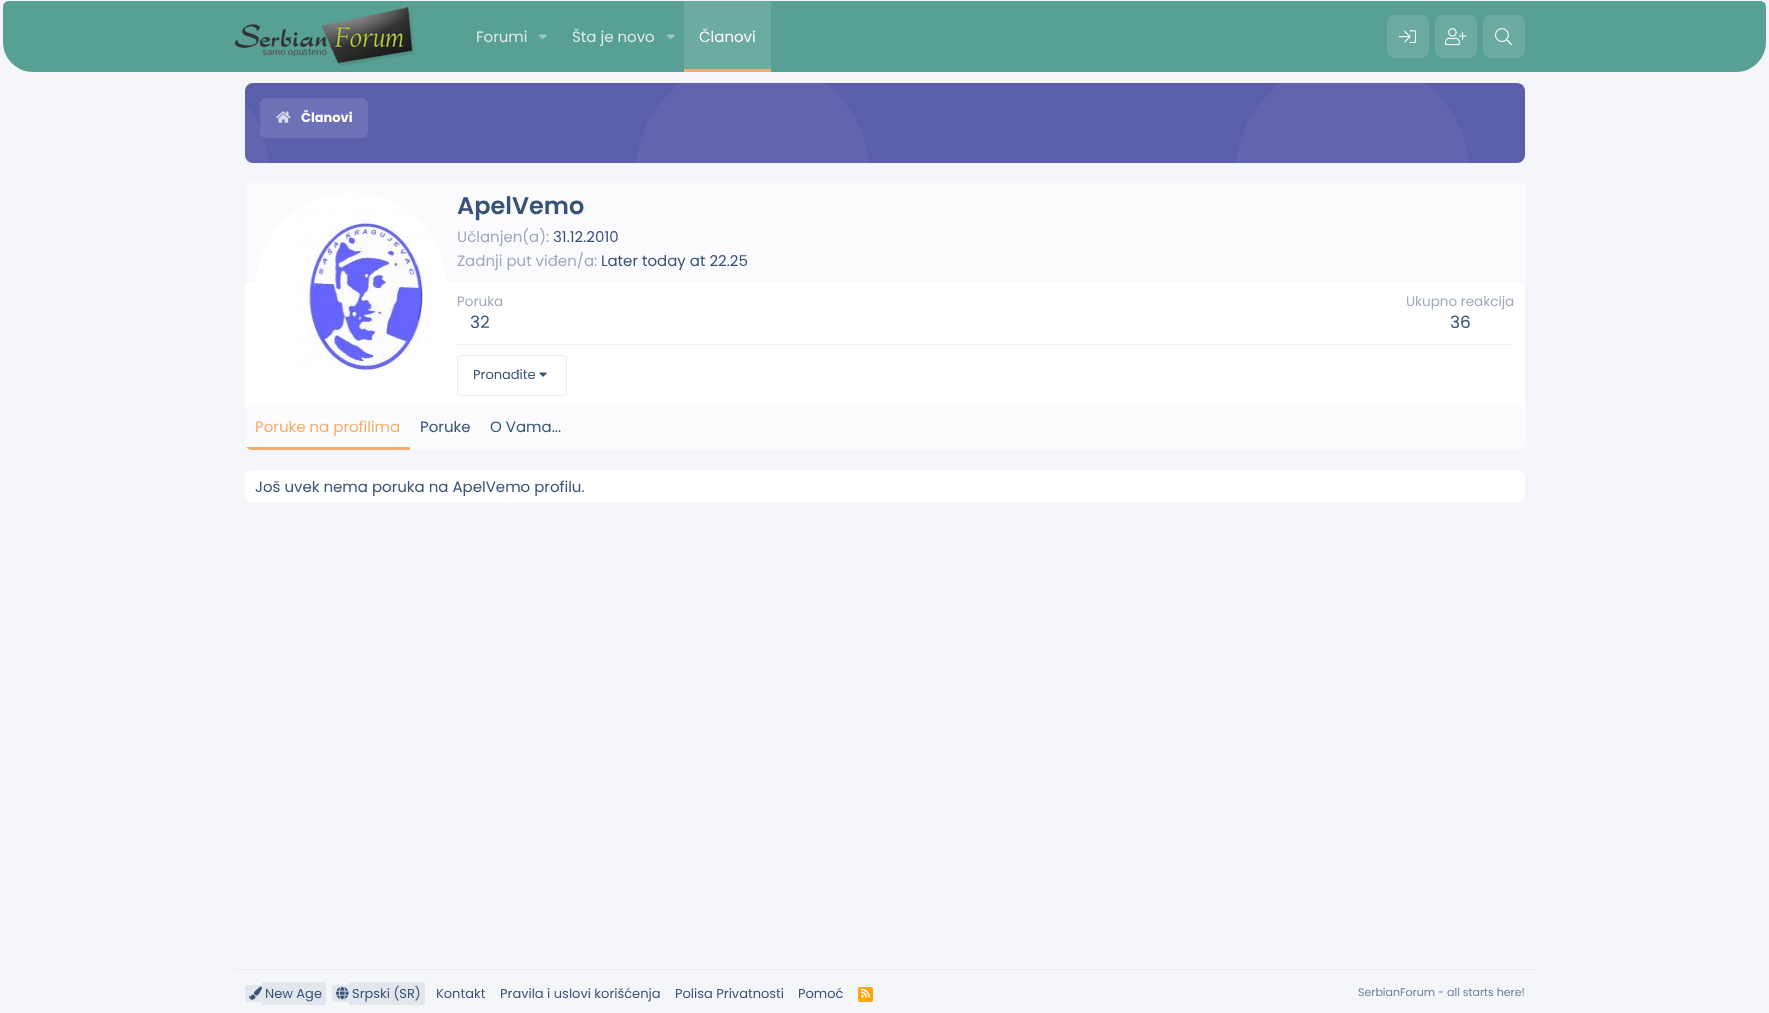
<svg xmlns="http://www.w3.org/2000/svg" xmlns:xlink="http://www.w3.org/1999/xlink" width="1769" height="1013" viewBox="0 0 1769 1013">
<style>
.cls-1{font:15px Poppins;fill:#ddebe9}
.cls-2{font:15px Poppins;fill:#fefefe}
.cls-3{font:bold 13px Poppins;fill:#fefefe}
.cls-4{font:600 24px Poppins;fill:#385377}
.cls-5{font:15px Poppins;fill:#9fa9bc}
.cls-6{font:15px Poppins;fill:#385377}
.cls-7{font:13.5px Poppins;fill:#9fa9bc}
.cls-8{font:17px Poppins;fill:#385377}
.cls-9{font:13px Poppins;fill:#385377}
.cls-10{font:15px Poppins;fill:#f7ad6a}
.cls-11{font:11px Poppins;fill:#6c7e9a}
</style>
<defs>
<clipPath id="clip1"><path d="M245 406H1525V443C1525 447 1522 450 1518 450H252C248 450 245 447 245 443Z"/></clipPath>
</defs>
<rect width="100%" height="100%" fill="#f5f6fa"/>
<path fill="#58a094" d="M9 1H1760C1763.5 1 1766 3.5 1766 7V42C1766 58.5 1752.5 72 1736 72H33C16.5 72 3 58.5 3 42V7C3 3.5 5.5 1 9 1Z"/>
<image xlink:href="image0.png" x="235" y="7" width="180" height="59"/>
<image xlink:href="image1.png" x="538" y="34" width="9" height="6"/>
<image xlink:href="image1.png" x="666" y="34" width="9" height="6"/>
<rect fill="#6caba1" x="684" y="1" width="87" height="68"/>
<rect fill="#f7ad6a" x="684" y="69" width="87" height="3"/>
<rect fill="#6caba1" x="1387" y="15" width="42" height="43" rx="8"/>
<image xlink:href="image2.png" x="1399" y="30" width="17" height="13"/>
<rect fill="#6caba1" x="1435" y="15" width="42" height="43" rx="8"/>
<image xlink:href="image3.png" x="1445" y="28" width="22" height="18"/>
<rect fill="#6caba1" x="1483" y="15" width="42" height="43" rx="8"/>
<image xlink:href="image4.png" x="1495" y="28" width="17" height="18"/>
<rect fill="#5b5eab" x="245" y="83" width="1280" height="80" rx="8"/>
<image xlink:href="image5.png" x="245" y="83" width="1223" height="80"/>
<rect fill="#ffffff" fill-opacity="0.12" x="260" y="98" width="108" height="40" rx="6"/>
<image xlink:href="image6.png" x="276" y="111" width="15" height="12"/>
<rect fill="#ffffff" x="245" y="183" width="1280" height="267" rx="8"/>
<rect fill="#fbfbfd" x="245" y="183" width="1280" height="98"/>
<rect fill="#f3f4f6" x="245" y="281" width="1280" height="1"/>
<circle fill="#ffffff" cx="351" cy="289" r="96"/>
<image xlink:href="image7.png" x="299" y="209" width="133" height="169"/>
<rect fill="#f3f4f6" x="457" y="344" width="1058" height="1"/>
<rect fill="none" stroke="#eaebf0" x="457.5" y="355.5" width="109" height="40" rx="3.5"/>
<image xlink:href="image8.png" x="539" y="372" width="8" height="5"/>
<path fill="#fbfbfd" d="M245 406H1525V443C1525 447 1522 450 1518 450H252C248 450 245 447 245 443Z"/>
<g clip-path="url(#clip1)">
<rect fill="#f7ad6a" x="245" y="447" width="165" height="3"/>
</g>
<rect fill="#ffffff" x="245" y="470" width="1280" height="33" rx="8"/>
<rect fill="#eaebf0" x="235" y="969" width="1300" height="1"/>
<path fill="#e2e6ed" d="M247 985H262V1002H247C246 1002 245 1001 245 1000V987C245 986 246 985 247 985Z"/>
<path fill="#e2e6ed" d="M262 982H324C325 982 326 983 326 984V1003C326 1004 325 1005 324 1005H262Z"/>
<image xlink:href="image9.png" x="249" y="986" width="13" height="14"/>
<path fill="#e2e6ed" d="M334 985H349V1002H334C333 1002 332 1001 332 1000V987C332 986 333 985 334 985Z"/>
<path fill="#e2e6ed" d="M349 982H423C424 982 425 983 425 984V1003C425 1004 424 1005 423 1005H349Z"/>
<image xlink:href="image10.png" x="336" y="986" width="13" height="14"/>
<rect fill="#ffa500" x="858" y="987" width="15" height="15" rx="2"/>
<image xlink:href="image11.png" x="861" y="988" width="10" height="10"/>
<text class="cls-1" x="476" y="42">Forumi</text>
<text class="cls-1" x="572" y="42">Šta je novo</text>
<text class="cls-2" x="699" y="42">Članovi</text>
<text class="cls-3" x="301" y="122">Članovi</text>
<text class="cls-4" x="457" y="214">ApelVemo</text>
<text class="cls-5" x="457" y="242">Učlanjen(a):</text>
<text class="cls-6" x="553" y="242">31.12.2010</text>
<text class="cls-5" x="457" y="266">Zadnji put viđen/a:</text>
<text class="cls-6" x="601" y="266">Later today at 22.25</text>
<text class="cls-7" x="457" y="306">Poruka</text>
<text class="cls-8" x="470" y="328">32</text>
<text class="cls-7" x="1406" y="306">Ukupno reakcija</text>
<text class="cls-8" x="1450" y="328">36</text>
<text class="cls-9" x="473" y="379">Pronađite</text>
<text class="cls-10" x="255" y="432">Poruke na profilima</text>
<text class="cls-6" x="420" y="432">Poruke</text>
<text class="cls-6" x="490" y="432">O Vama...</text>
<text class="cls-6" x="255" y="492">Još uvek nema poruka na ApelVemo profilu.</text>
<text class="cls-9" x="265" y="998">New Age</text>
<text class="cls-9" x="352" y="998">Srpski (SR)</text>
<text class="cls-9" x="436" y="998">Kontakt</text>
<text class="cls-9" x="500" y="998">Pravila i uslovi korišćenja</text>
<text class="cls-9" x="675" y="998">Polisa Privatnosti</text>
<text class="cls-9" x="798" y="998">Pomoć</text>
<text class="cls-11" x="1358" y="996">SerbianForum - all starts here!</text>
</svg>
